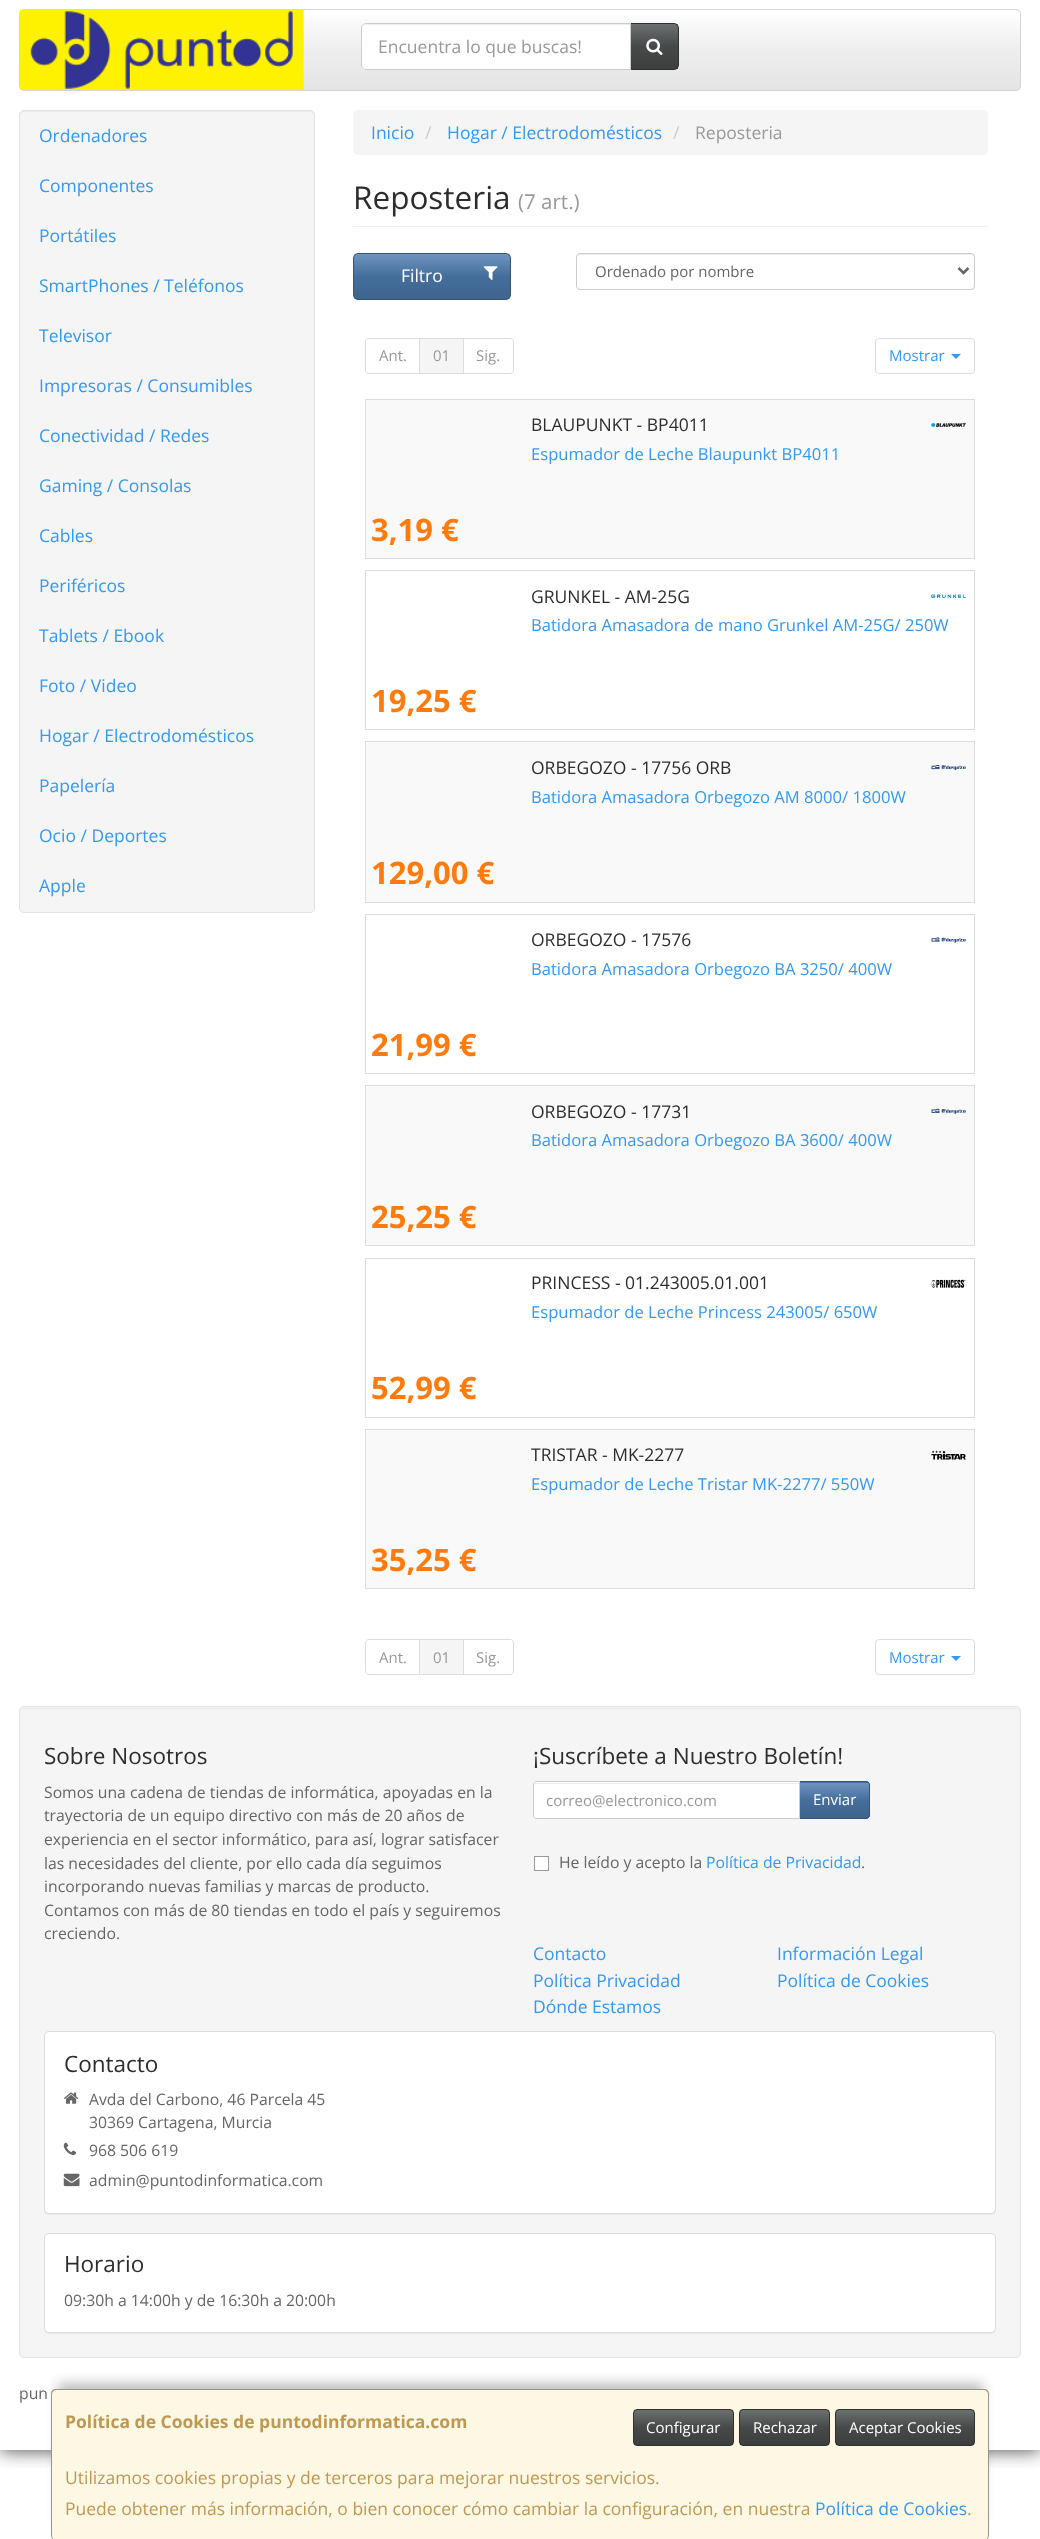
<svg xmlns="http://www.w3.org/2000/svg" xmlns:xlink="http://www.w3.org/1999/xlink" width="1040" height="2539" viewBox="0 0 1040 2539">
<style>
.cls-1{font:17.5px Open Sans;fill:#999999}
.cls-2{font:17.5px Open Sans;fill:#3399f3}
.cls-3{font:17.5px Open Sans;fill:#cccccc}
.cls-4{font:31.5px Open Sans;fill:#2d2d2d}
.cls-5{font:20.5px Open Sans;fill:#999999}
.cls-6{font:17.5px Open Sans;fill:#ffffff}
.cls-7{font:15px Open Sans;fill:#666666}
.cls-8{font:15px Open Sans;fill:#999999}
.cls-9{font:15px Open Sans;fill:#3399f3}
.cls-10{font:17.5px Open Sans;fill:#2d2d2d}
.cls-11{font:16.6px Open Sans;fill:#3399f3}
.cls-12{font:bold 31px Open Sans;fill:#ff7b0d}
.cls-13{font:22.5px Open Sans;fill:#2d2d2d}
.cls-14{font:15.75px Open Sans;fill:#666666}
.cls-15{font:15px Open Sans;fill:#ffffff}
.cls-16{font:15.75px Open Sans;fill:#3399f3}
.cls-17{font:bold 17.5px Open Sans;fill:#c09853}
.cls-18{font:17.5px Open Sans;fill:#c09853}
</style>
<defs>
<clipPath id="clip1"><rect x="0" y="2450" width="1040" height="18"/></clipPath>
<linearGradient id="g1" gradientUnits="userSpaceOnUse" x1="520" y1="10" x2="520" y2="90"><stop offset="0" stop-color="#ffffff"/><stop offset="0.5" stop-color="#eeeeee"/><stop offset="1" stop-color="#e4e4e4"/></linearGradient>
<linearGradient id="g2" gradientUnits="userSpaceOnUse" x1="654" y1="24" x2="654" y2="69"><stop offset="0" stop-color="#6d7070"/><stop offset="0.5" stop-color="#474949"/><stop offset="1" stop-color="#3d3f3f"/></linearGradient>
<clipPath id="clip2"><rect x="353" y="253" width="158" height="47" rx="5"/></clipPath>
<linearGradient id="g3" gradientUnits="userSpaceOnUse" x1="432" y1="254" x2="432" y2="299"><stop offset="0" stop-color="#6d94bf"/><stop offset="0.5" stop-color="#446e9b"/><stop offset="1" stop-color="#3e648d"/></linearGradient>
<linearGradient id="g4" gradientUnits="userSpaceOnUse" x1="834" y1="1783" x2="834" y2="1818"><stop offset="0" stop-color="#6d94bf"/><stop offset="0.5" stop-color="#446e9b"/><stop offset="1" stop-color="#3e648d"/></linearGradient>
<clipPath id="clip3"><rect x="633" y="2409" width="101" height="37" rx="4"/></clipPath>
<linearGradient id="g5" gradientUnits="userSpaceOnUse" x1="683" y1="2410" x2="683" y2="2445"><stop offset="0" stop-color="#6d7070"/><stop offset="0.5" stop-color="#474949"/><stop offset="1" stop-color="#3d3f3f"/></linearGradient>
<clipPath id="clip4"><rect x="739" y="2409" width="91" height="37" rx="4"/></clipPath>
<linearGradient id="g6" gradientUnits="userSpaceOnUse" x1="784" y1="2410" x2="784" y2="2445"><stop offset="0" stop-color="#6d7070"/><stop offset="0.5" stop-color="#474949"/><stop offset="1" stop-color="#3d3f3f"/></linearGradient>
<clipPath id="clip5"><rect x="835" y="2409" width="140" height="37" rx="4"/></clipPath>
<linearGradient id="g7" gradientUnits="userSpaceOnUse" x1="905" y1="2410" x2="905" y2="2445"><stop offset="0" stop-color="#6d7070"/><stop offset="0.5" stop-color="#474949"/><stop offset="1" stop-color="#3d3f3f"/></linearGradient>
</defs>
<rect width="100%" height="100%" fill="#ffffff"/>
<g clip-path="url(#clip1)">
<rect fill="#000000" fill-opacity="0.75" filter="blur(9.5px)" x="0" y="0" width="1040" height="2450"/>
</g>
<rect fill="url(#g1)" x="303" y="16" width="717" height="74"/>
<rect fill="none" stroke="#d5d5d5" x="19.5" y="9.5" width="1001" height="81" rx="4.5"/>
<image xlink:href="image0.png" x="20" y="10" width="284" height="80"/>
<rect fill="url(#g2)" x="631" y="24" width="47" height="45"/>
<path fill="none" stroke="#2e2f2f" d="M630.5 23.5H674C676.5 23.5 678.5 25.5 678.5 28V65C678.5 67.5 676.5 69.5 674 69.5H630.5Z"/>
<path fill="#ffffff" d="M366 23H631V70H366C363 70 361 68 361 65V28C361 25 363 23 366 23Z"/>
<path fill="#ececec" d="M366 25H630V24H367C366 24 364 25 364 26Z"/>
<path fill="none" stroke="#cccccc" d="M366 23.5H630.5V69.5H366C363.5 69.5 361.5 67.5 361.5 65V28C361.5 25.5 363.5 23.5 366 23.5Z"/>
<image xlink:href="image1.png" x="646" y="38" width="17" height="17"/>
<rect fill="#f5f5f5" x="19" y="110" width="296" height="803" rx="5"/>
<path fill="#e9e9e9" d="M24 112H310C312 112 314 114 314 116C314 113 313 111 310 111H24C21 111 20 113 20 116C20 114 22 112 24 112Z"/>
<rect fill="none" stroke="#e3e3e3" x="19.5" y="110.5" width="295" height="802" rx="4.5"/>
<rect fill="#f5f5f5" x="353" y="110" width="635" height="45" rx="5"/>
<rect fill="#eeeeee" x="353" y="226" width="635" height="1"/>
<g clip-path="url(#clip2)">
<rect fill="url(#g3)" x="354" y="254" width="156" height="45"/>
</g>
<rect fill="none" stroke="#345578" x="353.5" y="253.5" width="157" height="46" rx="4.5"/>
<image xlink:href="image2.png" x="483" y="266" width="15" height="14"/>
<path fill="#ececec" d="M580 255H971C973 255 974 256 974 258V255L972 254H580C578 254 578 256 578 258C578 256 579 255 580 255Z"/>
<rect fill="none" stroke="#cccccc" x="576.5" y="253.5" width="398" height="36" rx="3.5"/>
<path fill="none" stroke="#666666" stroke-width="2.5" d="M958.5 268L963.5 273L968.5 268"/>
<path fill="none" stroke="#dddddd" d="M369 338.5H419.5V373.5H369C367 373.5 365.5 372 365.5 370V342C365.5 340 367 338.5 369 338.5Z"/>
<path fill="none" stroke="#dddddd" d="M463.5 338.5H510C512 338.5 513.5 340 513.5 342V370C513.5 372 512 373.5 510 373.5H463.5Z"/>
<rect fill="#f5f5f5" stroke="#dddddd" x="419.5" y="338.5" width="44" height="35"/>
<rect fill="none" stroke="#dddddd" x="875.5" y="338.5" width="99" height="35" rx="3.5"/>
<path fill="#3399f3" d="M951 354H961L956 359Z"/>
<path fill="#f9f9f9" d="M370 399H970C973 399 975 401 975 404V559H365V404C365 401 367 399 370 399Z"/>
<rect fill="none" stroke="#dddddd" x="365.5" y="399.5" width="609" height="159"/>
<image xlink:href="image3.png" x="931" y="423" width="35" height="4"/>
<rect fill="none" stroke="#dddddd" x="365.5" y="570.5" width="609" height="159"/>
<image xlink:href="image4.png" x="931" y="594" width="35" height="4"/>
<rect fill="#f9f9f9" stroke="#dddddd" x="365.5" y="741.5" width="609" height="161"/>
<image xlink:href="image5.png" x="931" y="765" width="35" height="6"/>
<rect fill="none" stroke="#dddddd" x="365.5" y="914.5" width="609" height="159"/>
<image xlink:href="image6.png" x="931" y="937" width="35" height="6"/>
<rect fill="#f9f9f9" stroke="#dddddd" x="365.5" y="1085.5" width="609" height="160"/>
<image xlink:href="image7.png" x="931" y="1108" width="35" height="6"/>
<rect fill="none" stroke="#dddddd" x="365.5" y="1258.5" width="609" height="159"/>
<image xlink:href="image8.png" x="931" y="1279" width="35" height="9"/>
<path fill="#f9f9f9" d="M365 1429H975V1584C975 1587 973 1589 970 1589H370C367 1589 365 1587 365 1584Z"/>
<rect fill="none" stroke="#dddddd" x="365.5" y="1429.5" width="609" height="159"/>
<image xlink:href="image9.png" x="931" y="1450" width="35" height="10"/>
<path fill="none" stroke="#dddddd" d="M369 1639.5H419.5V1674.5H369C367 1674.5 365.5 1673 365.5 1671V1643C365.5 1641 367 1639.5 369 1639.5Z"/>
<path fill="none" stroke="#dddddd" d="M463.5 1639.5H510C512 1639.5 513.5 1641 513.5 1643V1671C513.5 1673 512 1674.5 510 1674.5H463.5Z"/>
<rect fill="#f5f5f5" stroke="#dddddd" x="419.5" y="1639.5" width="44" height="35"/>
<rect fill="none" stroke="#dddddd" x="875.5" y="1639.5" width="99" height="35" rx="3.5"/>
<path fill="#3399f3" d="M951 1656H961L956 1661Z"/>
<rect fill="#f5f5f5" x="19" y="1706" width="1002" height="652" rx="5"/>
<path fill="#e9e9e9" d="M24 1709H1016C1018 1709 1020 1710 1020 1712C1020 1710 1018 1708 1016 1708H24C22 1708 20 1710 20 1712C20 1710 22 1709 24 1709Z"/>
<rect fill="none" stroke="#e3e3e3" x="19.5" y="1706.5" width="1001" height="651" rx="4.5"/>
<path fill="#446e9b" d="M799 1781H866C868 1781 870 1783 870 1785V1815C870 1817 868 1819 866 1819H799Z"/>
<rect fill="url(#g4)" x="800" y="1783" width="69" height="35"/>
<path fill="none" stroke="#345578" d="M799.5 1781.5H866C868 1781.5 869.5 1783 869.5 1785V1815C869.5 1817 868 1818.5 866 1818.5H799.5Z"/>
<path fill="#ffffff" d="M537 1781H800V1819H537C535 1819 533 1817 533 1815V1785C533 1783 535 1781 537 1781Z"/>
<path fill="#ececec" d="M536 1784H799V1783H536C535 1783 534 1784 534 1786C534 1785 535 1784 536 1784Z"/>
<path fill="none" stroke="#cccccc" d="M537 1781.5H799.5V1818.5H537C535 1818.5 533.5 1817 533.5 1815V1785C533.5 1783 535 1781.5 537 1781.5Z"/>
<rect fill="#ffffff" stroke="#999999" x="534.5" y="1856.5" width="14" height="14"/>
<rect fill="#000000" fill-opacity="0.05" filter="blur(0.5px)" x="44" y="2033" width="952" height="182" rx="5"/>
<rect fill="#ffffff" stroke="#dddddd" x="44.5" y="2031.5" width="951" height="182" rx="4.5"/>
<image xlink:href="image10.png" x="64" y="2092" width="15" height="12"/>
<image xlink:href="image11.png" x="63" y="2142" width="14" height="13"/>
<image xlink:href="image12.png" x="63" y="2173" width="17" height="14"/>
<rect fill="#000000" fill-opacity="0.05" filter="blur(0.5px)" x="44" y="2234" width="952" height="100" rx="5"/>
<rect fill="#ffffff" stroke="#dddddd" x="44.5" y="2233.5" width="951" height="99" rx="4.5"/>
<rect fill="#000000" fill-opacity="0.25" filter="blur(6px)" x="58" y="2383" width="925" height="138"/>
<rect fill="#fcf8e3" x="51" y="2389" width="938" height="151" rx="5"/>
<path fill="#000000" fill-opacity="0.4" fill-rule="evenodd" d="M56 2389H984C987 2389 989 2391 989 2394V2535C989 2538 987 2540 984 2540H56C53 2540 51 2538 51 2535V2394C51 2391 53 2389 56 2389ZM56 2390H984C986 2390 988 2392 988 2394V2535C988 2538 986 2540 984 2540H56C54 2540 52 2538 52 2535V2394C52 2392 54 2390 56 2390Z"/>
<g clip-path="url(#clip3)">
<rect fill="url(#g5)" x="634" y="2410" width="99" height="35"/>
</g>
<rect fill="none" stroke="#2e2f2f" x="633.5" y="2409.5" width="100" height="36" rx="3.5"/>
<g clip-path="url(#clip4)">
<rect fill="url(#g6)" x="740" y="2410" width="89" height="35"/>
</g>
<rect fill="none" stroke="#2e2f2f" x="739.5" y="2409.5" width="90" height="36" rx="3.5"/>
<g clip-path="url(#clip5)">
<rect fill="url(#g7)" x="836" y="2410" width="138" height="35"/>
</g>
<rect fill="none" stroke="#2e2f2f" x="835.5" y="2409.5" width="139" height="36" rx="3.5"/>
<text class="cls-1" x="378" y="53">Encuentra lo que buscas!</text>
<text class="cls-2" x="39" y="142">Ordenadores</text>
<text class="cls-2" x="39" y="192">Componentes</text>
<text class="cls-2" x="39" y="242">Portátiles</text>
<text class="cls-2" x="39" y="292">SmartPhones / Teléfonos</text>
<text class="cls-2" x="39" y="342">Televisor</text>
<text class="cls-2" x="39" y="392">Impresoras / Consumibles</text>
<text class="cls-2" x="39" y="442">Conectividad / Redes</text>
<text class="cls-2" x="39" y="492">Gaming / Consolas</text>
<text class="cls-2" x="39" y="542">Cables</text>
<text class="cls-2" x="39" y="592">Periféricos</text>
<text class="cls-2" x="39" y="642">Tablets / Ebook</text>
<text class="cls-2" x="39" y="692">Foto / Video</text>
<text class="cls-2" x="39" y="742">Hogar / Electrodomésticos</text>
<text class="cls-2" x="39" y="792">Papelería</text>
<text class="cls-2" x="39" y="842">Ocio / Deportes</text>
<text class="cls-2" x="39" y="892">Apple</text>
<text class="cls-2" x="371" y="139">Inicio</text>
<text class="cls-3" x="425" y="139">/</text>
<text class="cls-2" x="447" y="139">Hogar / Electrodomésticos</text>
<text class="cls-3" x="673" y="139">/</text>
<text class="cls-1" x="695" y="139">Reposteria</text>
<text class="cls-4" x="353" y="209">Reposteria</text>
<text class="cls-5" x="518" y="209">(7 art.)</text>
<text class="cls-6" x="401" y="282">Filtro</text>
<text class="cls-7" x="595" y="277">Ordenado por nombre</text>
<text class="cls-8" x="379" y="361">Ant.</text>
<text class="cls-8" x="433" y="361">01</text>
<text class="cls-8" x="476" y="361">Sig.</text>
<text class="cls-9" x="889" y="361">Mostrar</text>
<text class="cls-10" x="531" y="431">BLAUPUNKT - BP4011</text>
<text class="cls-11" x="531" y="460">Espumador de Leche Blaupunkt BP4011</text>
<text class="cls-12" x="371" y="541">3,19 €</text>
<text class="cls-10" x="531" y="603">GRUNKEL - AM-25G</text>
<text class="cls-11" x="531" y="631">Batidora Amasadora de mano Grunkel AM-25G/ 250W</text>
<text class="cls-12" x="371" y="712">19,25 €</text>
<text class="cls-10" x="531" y="774">ORBEGOZO - 17756 ORB</text>
<text class="cls-11" x="531" y="803">Batidora Amasadora Orbegozo AM 8000/ 1800W</text>
<text class="cls-12" x="371" y="884">129,00 €</text>
<text class="cls-10" x="531" y="946">ORBEGOZO - 17576</text>
<text class="cls-11" x="531" y="975">Batidora Amasadora Orbegozo BA 3250/ 400W</text>
<text class="cls-12" x="371" y="1056">21,99 €</text>
<text class="cls-10" x="531" y="1118">ORBEGOZO - 17731</text>
<text class="cls-11" x="531" y="1146">Batidora Amasadora Orbegozo BA 3600/ 400W</text>
<text class="cls-12" x="371" y="1228">25,25 €</text>
<text class="cls-10" x="531" y="1289">PRINCESS - 01.243005.01.001</text>
<text class="cls-11" x="531" y="1318">Espumador de Leche Princess 243005/ 650W</text>
<text class="cls-12" x="371" y="1399">52,99 €</text>
<text class="cls-10" x="531" y="1461">TRISTAR - MK-2277</text>
<text class="cls-11" x="531" y="1490">Espumador de Leche Tristar MK-2277/ 550W</text>
<text class="cls-12" x="371" y="1571">35,25 €</text>
<text class="cls-8" x="379" y="1663">Ant.</text>
<text class="cls-8" x="433" y="1663">01</text>
<text class="cls-8" x="476" y="1663">Sig.</text>
<text class="cls-9" x="889" y="1663">Mostrar</text>
<text class="cls-13" x="44" y="1764">Sobre Nosotros</text>
<text class="cls-14"><tspan x="44" y="1798">Somos una cadena de tiendas de informática, apoyadas en la</tspan><tspan x="44" y="1821">trayectoria de un equipo directivo con más de 20 años de</tspan><tspan x="44" y="1845">experiencia en el sector informático, para así, lograr satisfacer</tspan><tspan x="44" y="1869">las necesidades del cliente, por ello cada día seguimos</tspan><tspan x="44" y="1892">incorporando nuevas familias y marcas de producto.</tspan><tspan x="44" y="1916">Contamos con más de 80 tiendas en todo el país y seguiremos</tspan><tspan x="44" y="1939">creciendo.</tspan></text>
<text class="cls-13" x="533" y="1764">¡Suscríbete a Nuestro Boletín!</text>
<text class="cls-8" x="546" y="1806">correo@electronico.com</text>
<text class="cls-15" x="813" y="1805">Enviar</text>
<text class="cls-14" x="559" y="1868">He leído y acepto la</text>
<text class="cls-16" x="706" y="1868">Política de Privacidad</text>
<text class="cls-14" x="861" y="1868">.</text>
<text class="cls-2" x="533" y="1960">Contacto</text>
<text class="cls-2" x="777" y="1960">Información Legal</text>
<text class="cls-2" x="533" y="1987">Política Privacidad</text>
<text class="cls-2" x="777" y="1987">Política de Cookies</text>
<text class="cls-2" x="533" y="2013">Dónde Estamos</text>
<text class="cls-13" x="64" y="2072">Contacto</text>
<text class="cls-14"><tspan x="89" y="2105">Avda del Carbono, 46 Parcela 45</tspan><tspan x="89" y="2128">30369 Cartagena, Murcia</tspan><tspan x="89" y="2156">968 506 619</tspan><tspan x="89" y="2186">admin@puntodinformatica.com</tspan></text>
<text class="cls-13" x="64" y="2272">Horario</text>
<text class="cls-14" x="64" y="2306">09:30h a 14:00h y de 16:30h a 20:00h</text>
<text class="cls-14" x="19" y="2399">pun</text>
<text class="cls-17" x="65" y="2428">Política de Cookies de puntodinformatica.com</text>
<text class="cls-15" x="646" y="2433">Configurar</text>
<text class="cls-15" x="753" y="2433">Rechazar</text>
<text class="cls-15" x="849" y="2433">Aceptar Cookies</text>
<text class="cls-18"><tspan x="65" y="2484">Utilizamos cookies propias y de terceros para mejorar nuestros servicios.</tspan><tspan x="65" y="2515">Puede obtener más información, o bien conocer cómo cambiar la configuración, en nuestra</tspan></text>
<text class="cls-2" x="815" y="2515">Política de Cookies</text>
<text class="cls-18" x="967" y="2515">.</text>
</svg>
